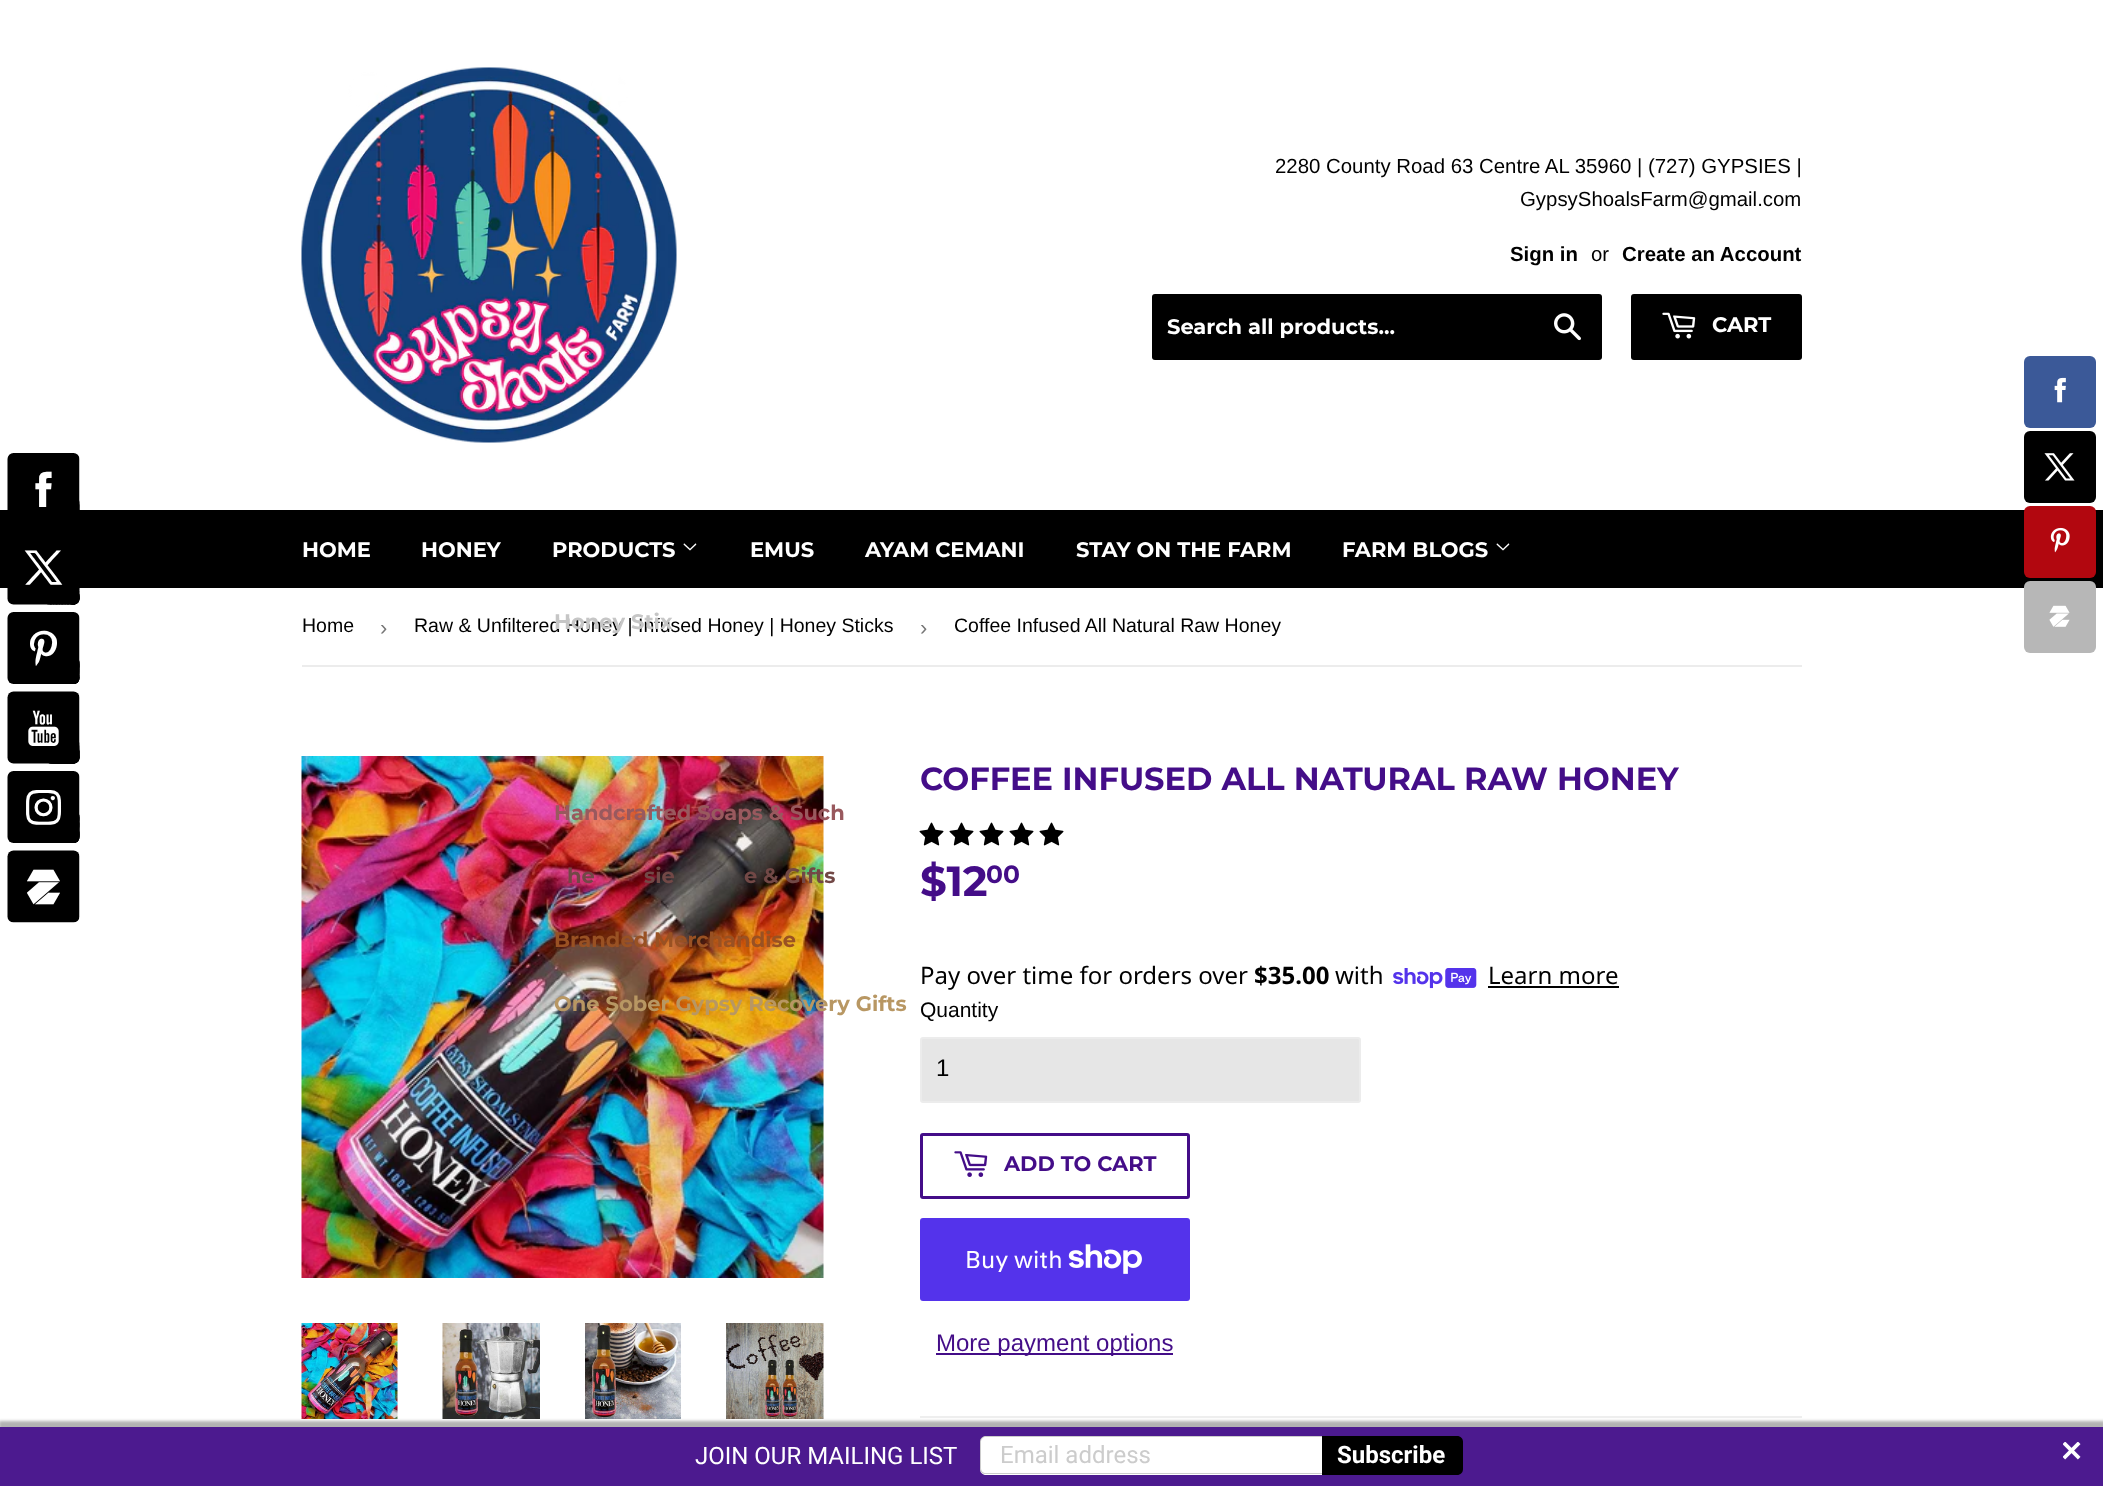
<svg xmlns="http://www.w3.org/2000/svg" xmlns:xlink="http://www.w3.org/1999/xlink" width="2103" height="1486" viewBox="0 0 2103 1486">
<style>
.cls-1{font:20.4px Liberation Sans;fill:#000000}
.cls-2{font:bold 20.4px Liberation Sans;fill:#000000}
.cls-3{font:100 21px Montserrat;fill:#ffffff}
.cls-4{font:100 21px Montserrat;fill:#99595e}
.cls-5{font:100 21px Montserrat;fill:#724846}
.cls-6{font:100 21px Montserrat;fill:#995123}
.cls-7{font:100 21px Montserrat;fill:#b89763}
.cls-8{font:19.5px Liberation Sans;fill:#000000}
.cls-9{font:22px Liberation Sans;fill:#767676}
.cls-10{font:100 21px Montserrat;fill:#c6c6c6}
.cls-11{font:100 32px Montserrat;fill:#440d88}
.cls-12{font:100 42px Montserrat;fill:#440d88}
.cls-13{font:100 25px Montserrat;fill:#440d88}
.cls-14{font:24px Noto Sans;fill:#000000}
.cls-15{font:bold 24px Noto Sans;fill:#000000}
.cls-16{font:21px Liberation Sans;fill:#000000}
.cls-17{font:24px Liberation Sans;fill:#000000}
.cls-18{font:100 21px Montserrat;fill:#440d88}
.cls-19{font:24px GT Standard;fill:#ffffff}
.cls-20{font:24px Liberation Sans;fill:#440d88}
.cls-21{font:24px Roboto;fill:#ffffff}
.cls-22{font:24px Roboto;fill:#cccccc}
.cls-23{font:bold 24px Roboto;fill:#ffffff}
</style>
<rect width="100%" height="100%" fill="#ffffff"/>
<rect fill="#000000" x="0" y="510" width="2103" height="78"/>
<image xlink:href="image0.png" x="7" y="453" width="73" height="470"/>
<image xlink:href="image1.png" x="301" y="67" width="376" height="376"/>
<rect fill="#000000" x="1152" y="294" width="450" height="66" rx="3"/>
<image xlink:href="image2.png" x="1554" y="313" width="27" height="28"/>
<rect fill="#000000" x="1631" y="294" width="171" height="66" rx="3"/>
<image xlink:href="image3.png" x="1662" y="312" width="34" height="27"/>
<image xlink:href="image4.png" x="683" y="543" width="14" height="8"/>
<image xlink:href="image4.png" x="1496" y="543" width="14" height="8"/>
<rect fill="#3b5998" x="2024" y="356" width="72" height="72" rx="6"/>
<image xlink:href="image5.png" x="2054" y="377" width="12" height="26"/>
<rect fill="#000000" x="2024" y="431" width="72" height="72" rx="6"/>
<image xlink:href="image6.png" x="2044" y="453" width="31" height="28"/>
<rect fill="#b2070f" x="2024" y="506" width="72" height="72" rx="6"/>
<image xlink:href="image7.png" x="2050" y="527" width="20" height="26"/>
<rect fill="#b7b7b7" x="2024" y="581" width="72" height="72" rx="6"/>
<image xlink:href="image8.png" x="2049" y="605" width="21" height="22"/>
<rect fill="#ececec" x="302" y="665" width="1500" height="2"/>
<image xlink:href="image9.png" x="301" y="756" width="523" height="522"/>
<image xlink:href="image10.png" x="301" y="1323" width="97" height="96"/>
<image xlink:href="image11.png" x="442" y="1323" width="98" height="96"/>
<image xlink:href="image12.png" x="585" y="1323" width="96" height="96"/>
<image xlink:href="image13.png" x="726" y="1323" width="98" height="96"/>
<image xlink:href="image14.png" x="919" y="822" width="25" height="24"/>
<image xlink:href="image14.png" x="949" y="822" width="25" height="24"/>
<image xlink:href="image14.png" x="979" y="822" width="25" height="24"/>
<image xlink:href="image14.png" x="1009" y="822" width="25" height="24"/>
<image xlink:href="image14.png" x="1039" y="822" width="25" height="24"/>
<image xlink:href="image15.png" x="1393" y="968" width="84" height="21"/>
<rect fill="#000000" x="1488" y="986" width="131" height="2"/>
<rect fill="#e6e6e6" stroke="#ececec" stroke-width="2" x="921" y="1038" width="439" height="64" rx="2"/>
<rect fill="none" stroke="#440d88" stroke-width="3" x="921.5" y="1134.5" width="267" height="63" rx="1.5"/>
<image xlink:href="image16.png" x="954" y="1151" width="34" height="26"/>
<rect fill="#5433eb" x="920" y="1218" width="270" height="83" rx="3"/>
<image xlink:href="image17.png" x="1068" y="1244" width="74" height="30"/>
<rect fill="#440d88" x="936" y="1353" width="237" height="2"/>
<rect fill="#eeeeee" x="920" y="1416" width="882" height="2"/>
<rect fill="#000000" fill-opacity="0.3" filter="blur(1.5px)" x="-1" y="1421" width="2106" height="63"/>
<rect fill="#4c1a8f" x="0" y="1427" width="2103" height="59"/>
<path fill="#ffffff" d="M986 1436H1322V1475H986C982.5 1475 980 1472.5 980 1469V1442C980 1438.5 982.5 1436 986 1436Z"/>
<path fill="#000000" fill-opacity="0.2" fill-rule="evenodd" d="M986 1436H1322V1474H986C982 1474 980 1472 980 1468V1442C980 1438 982 1436 986 1436ZM986 1437H1322V1473H986C983 1473 981 1471 981 1468V1442C981 1439 983 1437 986 1437Z"/>
<path fill="#000000" d="M1322 1436H1457C1460.5 1436 1463 1438.5 1463 1442V1469C1463 1472.5 1460.5 1475 1457 1475H1322Z"/>
<path fill="#000000" fill-opacity="0.2" fill-rule="evenodd" d="M1322 1436H1456C1460 1436 1462 1438 1462 1442V1468C1462 1472 1460 1474 1456 1474H1322ZM1322 1437H1456C1459 1437 1461 1439 1461 1442V1468C1461 1471 1459 1473 1456 1473H1322Z"/>
<image xlink:href="image18.png" x="2063" y="1442" width="18" height="18"/>
<text class="cls-1" x="1275" y="173">2280 County Road 63 Centre AL 35960 | (727) GYPSIES |</text>
<text class="cls-1" x="1520" y="206">GypsyShoalsFarm@gmail.com</text>
<text class="cls-2" x="1510" y="261">Sign in</text>
<text class="cls-1" x="1591" y="261">or</text>
<text class="cls-2" x="1622" y="261">Create an Account</text>
<text class="cls-3" x="1167" y="334">Search all products...</text>
<text class="cls-3" x="1712" y="332">CART</text>
<text class="cls-3" x="302" y="557">HOME</text>
<text class="cls-3" x="421" y="557">HONEY</text>
<text class="cls-3" x="552" y="557">PRODUCTS</text>
<text class="cls-4" x="554" y="820">Handcrafted Soaps &amp; Such</text>
<text class="cls-5" x="567" y="883">he</text>
<text class="cls-5" x="644" y="883">sie</text>
<text class="cls-5" x="744" y="883">e &amp; Gifts</text>
<text class="cls-6" x="554" y="947">Branded Merchandise</text>
<text class="cls-7" x="554" y="1011">One Sober Gypsy Recovery Gifts</text>
<text class="cls-3" x="750" y="557">EMUS</text>
<text class="cls-3" x="865" y="557">AYAM CEMANI</text>
<text class="cls-3" x="1076" y="557">STAY ON THE FARM</text>
<text class="cls-3" x="1342" y="557">FARM BLOGS</text>
<text class="cls-8" x="302" y="632">Home</text>
<text class="cls-9" x="380" y="635">›</text>
<text class="cls-8" x="414" y="632">Raw &amp; Unfiltered Honey | Infused Honey | Honey Sticks</text>
<text class="cls-10" x="554" y="629">Honey Stix</text>
<text class="cls-9" x="920" y="635">›</text>
<text class="cls-8" x="954" y="632">Coffee Infused All Natural Raw Honey</text>
<text class="cls-11" x="920" y="790">COFFEE INFUSED ALL NATURAL RAW HONEY</text>
<text class="cls-12" x="920" y="896">$12</text>
<text class="cls-13" x="986" y="883">00</text>
<text class="cls-14" x="920" y="984">Pay over time for orders over</text>
<text class="cls-15" x="1254" y="984">$35.00</text>
<text class="cls-14" x="1335" y="984">with</text>
<text class="cls-14" x="1488" y="984">Learn more</text>
<text class="cls-16" x="920" y="1017">Quantity</text>
<text class="cls-17" x="936" y="1076">1</text>
<text class="cls-18" x="1004" y="1171">ADD TO CART</text>
<text class="cls-19" x="965" y="1268">Buy with</text>
<text class="cls-20" x="936" y="1351">More payment options</text>
<text class="cls-21" x="695" y="1464">JOIN OUR MAILING LIST</text>
<text class="cls-22" x="1000" y="1463">Email address</text>
<text class="cls-23" x="1337" y="1463">Subscribe</text>
</svg>
